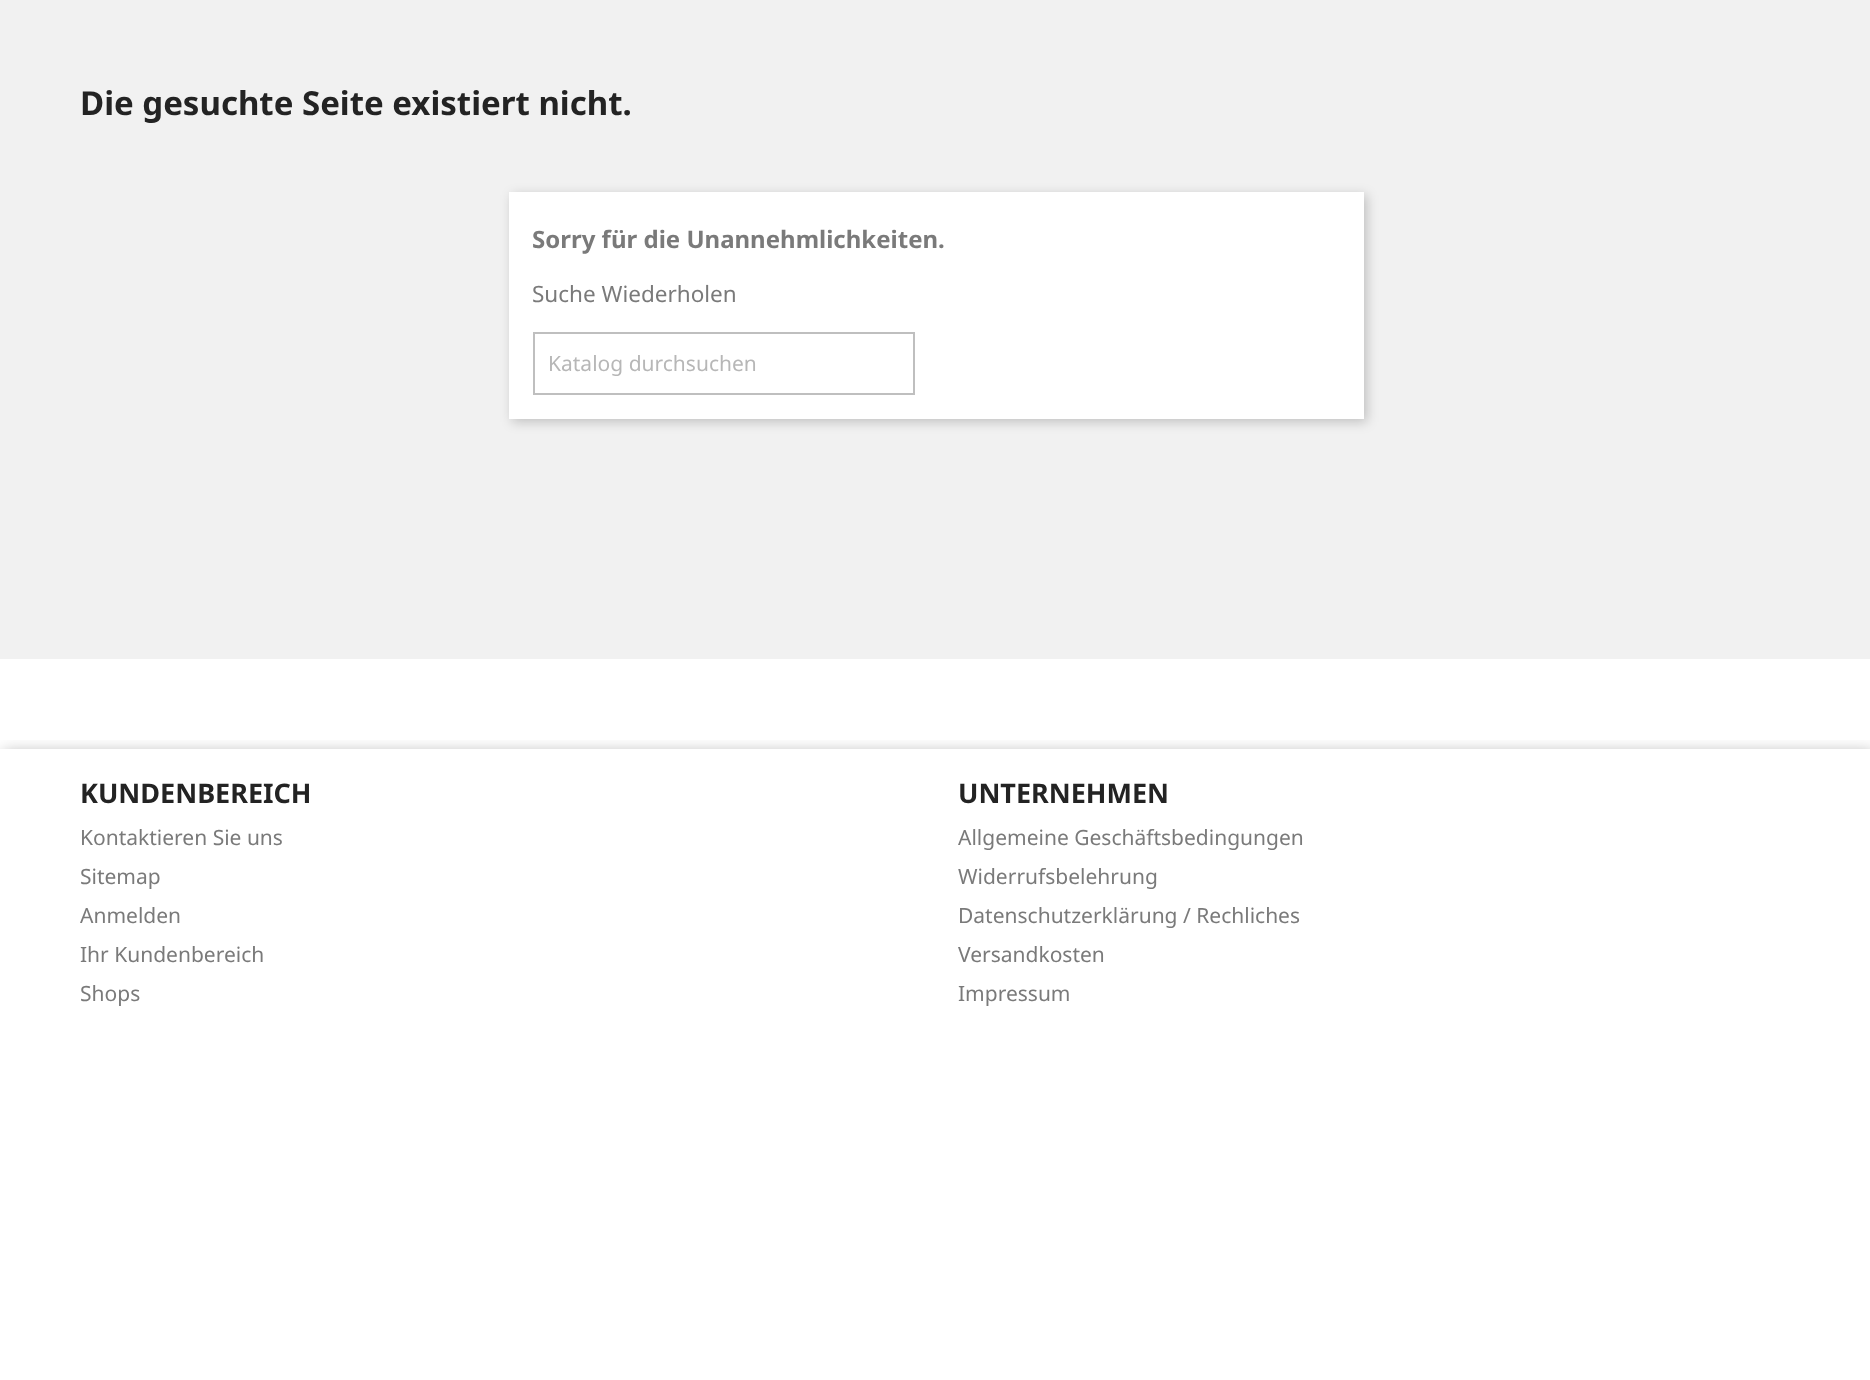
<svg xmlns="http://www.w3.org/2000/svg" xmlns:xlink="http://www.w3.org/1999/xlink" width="1870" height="1380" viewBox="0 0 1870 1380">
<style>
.cls-1{font:bold 33px Noto Sans;fill:#232323}
.cls-2{font:bold 24px Noto Sans;fill:#7a7a7a}
.cls-3{font:22.5px Noto Sans;fill:#7a7a7a}
.cls-4{font:21px Noto Sans;fill:#b7b7b7}
.cls-5{font:bold 27px Noto Sans;fill:#232323}
.cls-6{font:21px Noto Sans;fill:#7a7a7a}
</style>
<defs>
<clipPath id="clip1"><rect x="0" y="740" width="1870" height="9"/></clipPath>
</defs>
<rect width="100%" height="100%" fill="#ffffff"/>
<rect fill="#f1f1f1" x="0" y="0" width="1870" height="659"/>
<rect fill="#000000" fill-opacity="0.2" filter="blur(6px)" x="512" y="195" width="855" height="227"/>
<rect fill="#ffffff" x="509" y="192" width="855" height="227"/>
<rect fill="none" stroke="#bfbfbf" stroke-width="2" x="534" y="333" width="380" height="61"/>
<g clip-path="url(#clip1)">
<rect fill="#000000" fill-opacity="0.3" filter="blur(8px)" x="3" y="752" width="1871" height="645"/>
</g>
<text class="cls-1" x="80" y="115">Die gesuchte Seite existiert nicht.</text>
<text class="cls-2" x="532" y="248">Sorry für die Unannehmlichkeiten.</text>
<text class="cls-3" x="532" y="302">Suche Wiederholen</text>
<text class="cls-4" x="548" y="371">Katalog durchsuchen</text>
<text class="cls-5" x="80" y="803">KUNDENBEREICH</text>
<text class="cls-6"><tspan x="80" y="845">Kontaktieren Sie uns</tspan><tspan x="80" y="884">Sitemap</tspan><tspan x="80" y="923">Anmelden</tspan><tspan x="80" y="962">Ihr Kundenbereich</tspan><tspan x="80" y="1001">Shops</tspan></text>
<text class="cls-5" x="958" y="803">UNTERNEHMEN</text>
<text class="cls-6"><tspan x="958" y="845">Allgemeine Geschäftsbedingungen</tspan><tspan x="958" y="884">Widerrufsbelehrung</tspan><tspan x="958" y="923">Datenschutzerklärung / Rechliches</tspan><tspan x="958" y="962">Versandkosten</tspan><tspan x="958" y="1001">Impressum</tspan></text>
</svg>
